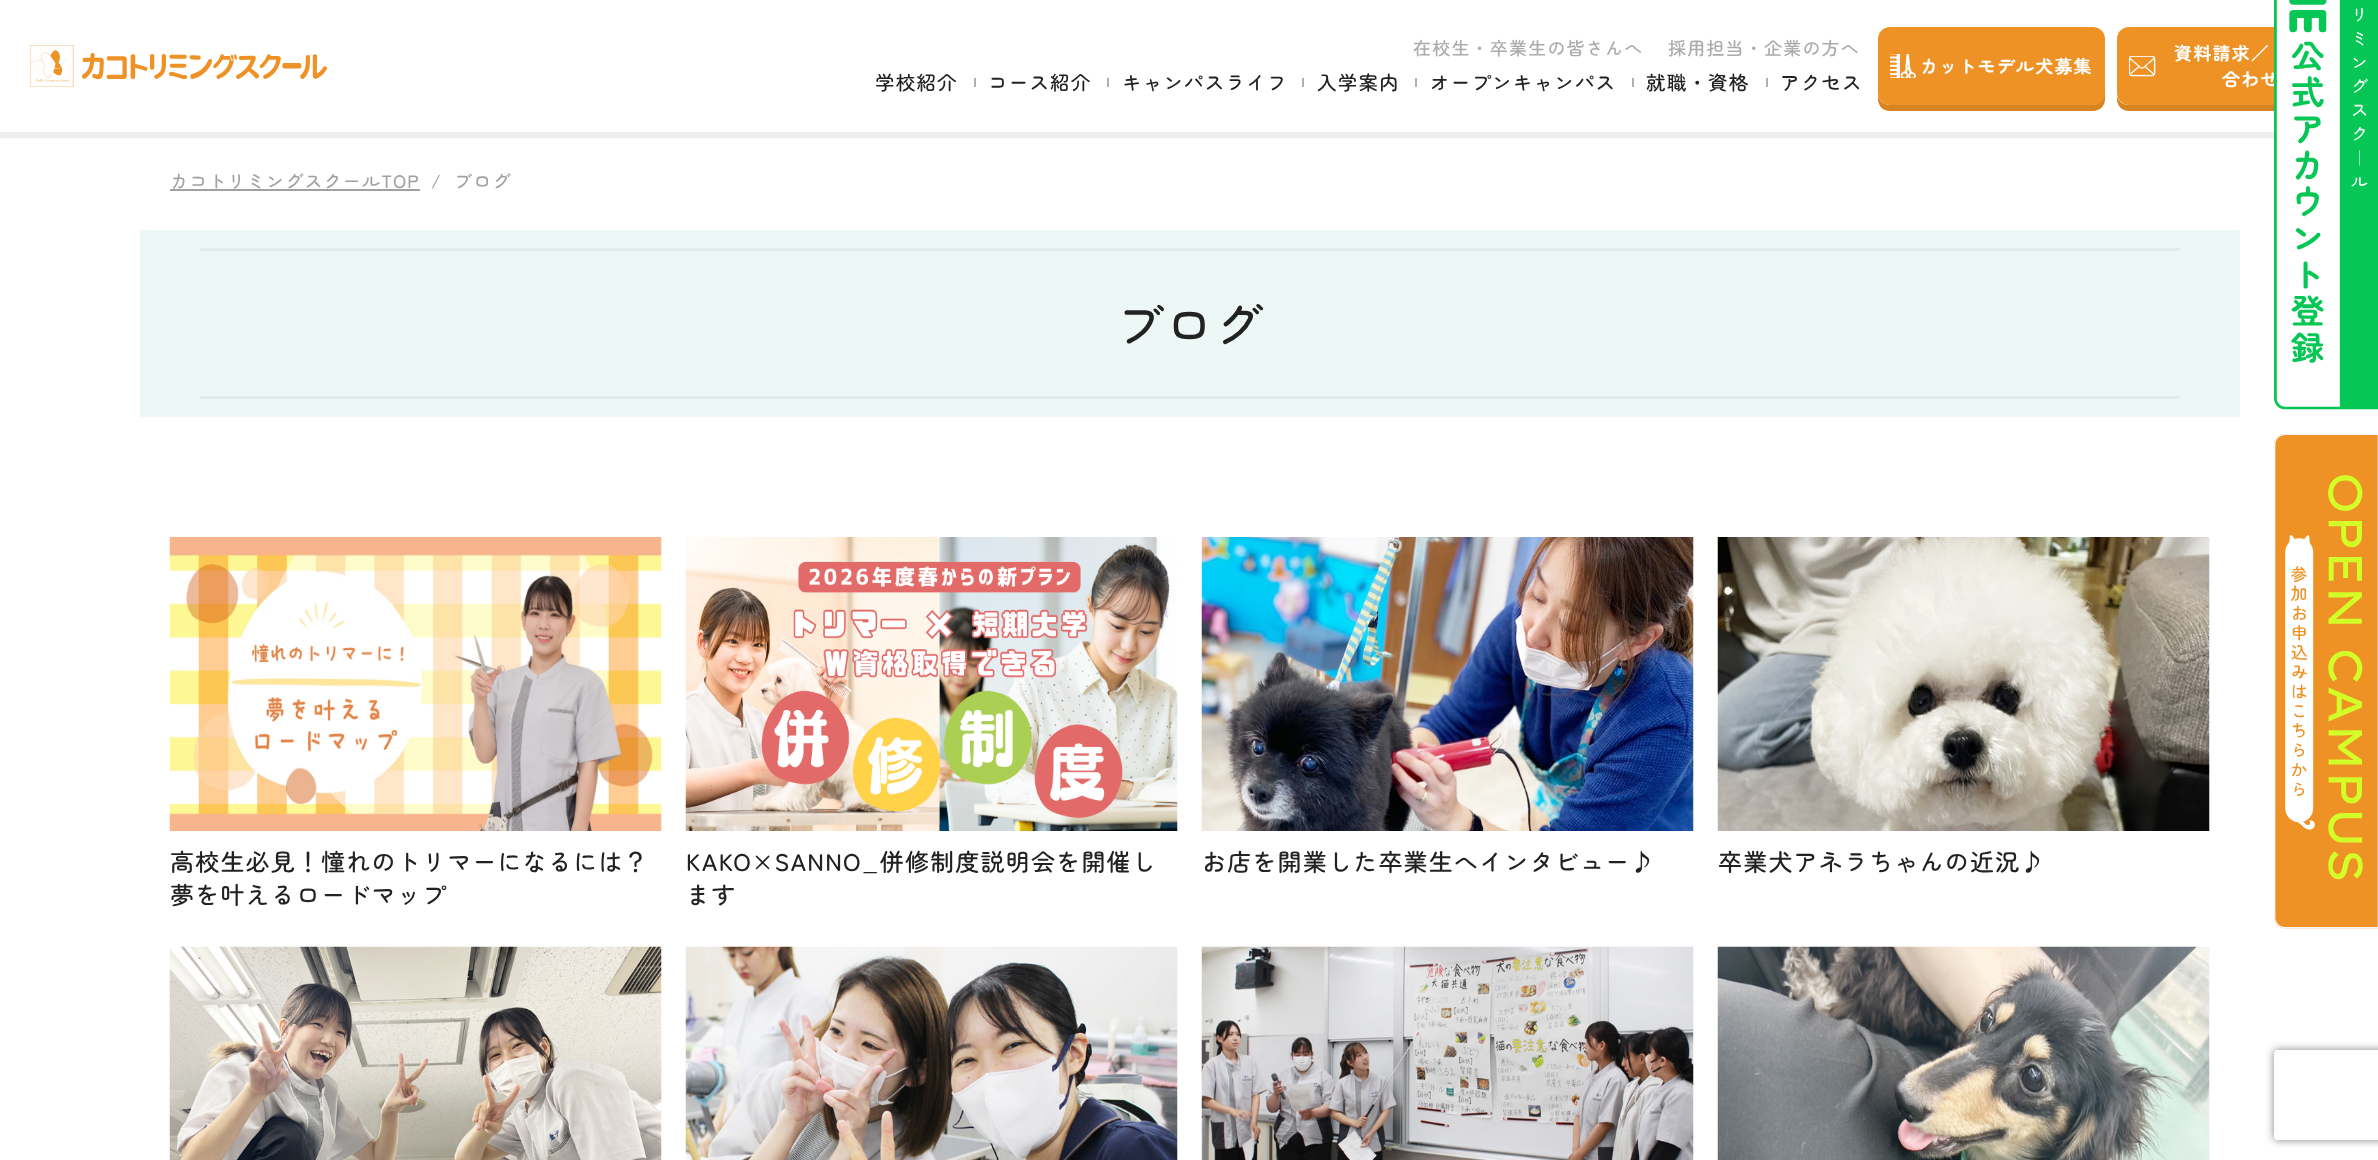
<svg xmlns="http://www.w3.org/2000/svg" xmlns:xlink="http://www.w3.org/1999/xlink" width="2378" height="1160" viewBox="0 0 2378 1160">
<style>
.cls-1{font:500 18px Zen Maru Gothic;letter-spacing:1.2px;fill:#acacac}
.cls-2{font:500 19.5px Zen Maru Gothic;letter-spacing:1.2px;fill:#222222}
.cls-3{font:bold 18px Zen Maru Gothic;letter-spacing:1.2px;fill:#ffffff}
.cls-4{font:500 18px Zen Maru Gothic;letter-spacing:1.2px;fill:#a1a1a1}
.cls-5{font:500 48px Zen Maru Gothic;letter-spacing:1.2px;fill:#222222}
.cls-6{font:500 24px Zen Maru Gothic;letter-spacing:1.2px;fill:#222222}
</style>
<defs>
<clipPath id="clip1"><path d="M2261 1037H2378V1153H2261ZM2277 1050H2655C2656.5 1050 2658 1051.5 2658 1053V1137C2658 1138.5 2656.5 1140 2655 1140H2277C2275.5 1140 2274 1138.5 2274 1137V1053C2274 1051.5 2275.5 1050 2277 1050Z" clip-rule="evenodd"/></clipPath>
</defs>
<rect width="100%" height="100%" fill="#ffffff"/>
<rect fill="#eeeeee" x="0" y="132" width="2274" height="6"/>
<image xlink:href="image0.png" x="30" y="45" width="297" height="42"/>
<rect fill="#afafaf" x="974" y="78" width="2" height="9"/>
<rect fill="#afafaf" x="1107" y="78" width="2" height="9"/>
<rect fill="#afafaf" x="1302" y="78" width="2" height="9"/>
<rect fill="#afafaf" x="1415" y="78" width="2" height="9"/>
<rect fill="#afafaf" x="1632" y="78" width="2" height="9"/>
<rect fill="#afafaf" x="1766" y="78" width="2" height="9"/>
<path fill="#d68321" d="M1878 93V99C1878 106 1883 111 1890 111H2093C2100 111 2105 106 2105 99V45L2104 42V93C2104 100 2099 105 2092 105H1890C1883 105 1878 100 1878 93Z"/>
<rect fill="#ee9226" x="1878" y="27" width="227" height="78" rx="12"/>
<image xlink:href="image1.png" x="1890" y="54" width="26" height="24"/>
<path fill="#d68321" d="M2117 96V99C2117 106 2122 111 2129 111H2337C2344 111 2349 106 2349 99V93C2349 100 2344 105 2337 105H2128C2123 105 2118 101 2117 96Z"/>
<rect fill="#ee9226" x="2117" y="27" width="232" height="78" rx="12"/>
<image xlink:href="image2.png" x="2129" y="56" width="27" height="21"/>
<image xlink:href="image4.png" x="2274" y="434" width="104" height="495"/>
<rect fill="#a1a1a1" x="170" y="189" width="250" height="2"/>
<rect fill="#edf7f6" x="140" y="230" width="2100" height="187"/>
<rect fill="#e4e9e9" x="200" y="248" width="1980" height="3"/>
<rect fill="#e4e9e9" x="200" y="396" width="1980" height="3"/>
<image xlink:href="image5.png" x="169" y="537" width="493" height="294"/>
<image xlink:href="image6.png" x="685" y="537" width="493" height="294"/>
<image xlink:href="image7.png" x="1201" y="537" width="493" height="294"/>
<image xlink:href="image8.png" x="1717" y="537" width="493" height="294"/>
<image xlink:href="image9.png" x="169" y="946" width="493" height="214"/>
<image xlink:href="image10.png" x="685" y="946" width="493" height="214"/>
<image xlink:href="image11.png" x="1201" y="946" width="493" height="214"/>
<image xlink:href="image12.png" x="1717" y="946" width="493" height="214"/>
<g clip-path="url(#clip1)">
<rect fill="#808080" filter="blur(4px)" x="2274" y="1050" width="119" height="90" rx="3"/>
</g>
<text class="cls-1" x="1413" y="55">在校生・卒業生の皆さんへ</text>
<text class="cls-1" x="1668" y="55">採用担当・企業の方へ</text>
<text class="cls-2" x="875" y="90">学校紹介</text>
<text class="cls-2" x="988" y="90">コース紹介</text>
<text class="cls-2" x="1122" y="90">キャンパスライフ</text>
<text class="cls-2" x="1317" y="90">入学案内</text>
<text class="cls-2" x="1430" y="90">オープンキャンパス</text>
<text class="cls-2" x="1646" y="90">就職・資格</text>
<text class="cls-2" x="1780" y="90">アクセス</text>
<text class="cls-3" x="1920" y="73">カットモデル犬募集</text>
<text class="cls-3" x="2174" y="60">資料請求／</text>
<text class="cls-3" x="2222" y="86">合わせ</text>
<image xlink:href="image3.png" x="2274" y="0" width="104" height="410"/>
<text class="cls-4" x="170" y="188">カコトリミングスクールTOP</text>
<text class="cls-4" x="431" y="188">/</text>
<text class="cls-4" x="454" y="188">ブログ</text>
<text class="cls-5" x="1116" y="343">ブログ</text>
<text class="cls-6"><tspan x="170" y="871">高校生必見！憧れのトリマーになるには？</tspan><tspan x="170" y="904">夢を叶えるロードマップ</tspan></text>
<text class="cls-6"><tspan x="686" y="871">KAKO×SANNO_併修制度説明会を開催し</tspan><tspan x="686" y="904">ます</tspan></text>
<text class="cls-6" x="1202" y="871">お店を開業した卒業生へインタビュー♪</text>
<text class="cls-6" x="1718" y="871">卒業犬アネラちゃんの近況♪</text>
</svg>
